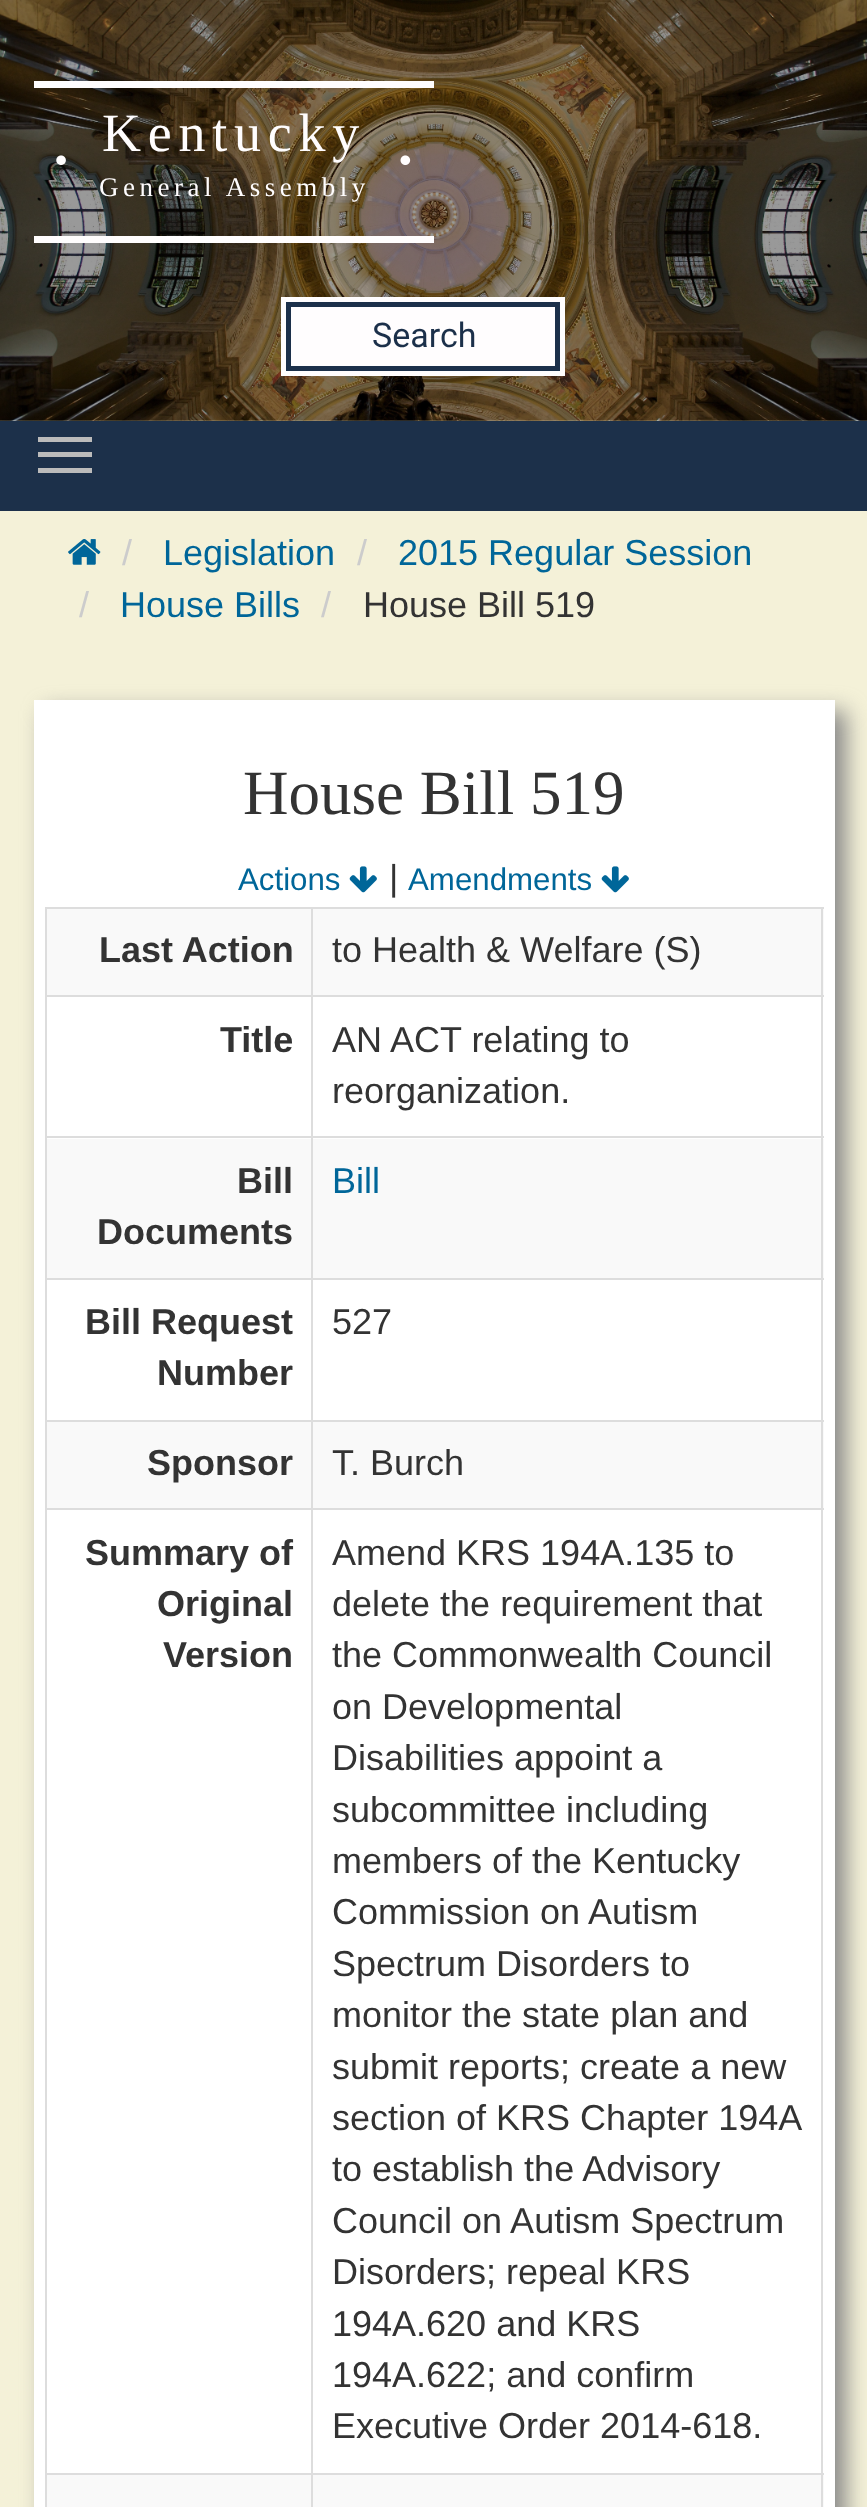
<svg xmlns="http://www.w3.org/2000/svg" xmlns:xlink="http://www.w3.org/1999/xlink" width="867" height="2507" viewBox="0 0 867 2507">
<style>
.cls-1{font:54px Liberation Serif;letter-spacing:6.75px;fill:#fffdfe}
.cls-2{font:27px Liberation Serif;letter-spacing:4.5px;fill:#fffdfe}
.cls-3{font:34px Roboto;fill:#1c304a}
.cls-4{font:36px Liberation Sans;fill:#cccccc}
.cls-5{font:36px Liberation Sans;fill:#006699}
.cls-6{font:36px Liberation Sans;fill:#333333}
.cls-7{font:63px Liberation Serif;fill:#333333}
.cls-8{font:31.25px Liberation Sans;fill:#006699}
.cls-9{font:bold 36px Liberation Sans;fill:#333333}
</style>
<rect width="100%" height="100%" fill="#f4f1d8"/>
<image xlink:href="image0.png" x="0" y="0" width="867" height="421"/>
<rect fill="#fffdfe" x="34" y="81" width="400" height="7"/>
<rect fill="#fffdfe" x="34" y="236" width="400" height="7"/>
<image xlink:href="image1.png" x="56" y="155" width="10" height="10"/>
<image xlink:href="image2.png" x="400" y="155" width="11" height="10"/>
<rect fill="#fffdfe" x="281" y="297" width="284" height="79"/>
<rect fill="none" stroke="#1c304a" stroke-width="5" x="288.5" y="304.5" width="269" height="64"/>
<rect fill="#1c304a" x="0" y="421" width="867" height="90"/>
<rect fill="#bbbbbb" x="38" y="452" width="54" height="5"/>
<rect fill="#bbbbbb" x="38" y="437" width="54" height="5"/>
<rect fill="#bbbbbb" x="38" y="468" width="54" height="5"/>
<image xlink:href="image3.png" x="68" y="539" width="33" height="26"/>
<rect fill="#888888" filter="blur(11px)" x="45" y="711" width="801" height="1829"/>
<rect fill="#ffffff" x="34" y="700" width="801" height="1807"/>
<image xlink:href="image4.png" x="349" y="866" width="28" height="27"/>
<image xlink:href="image4.png" x="601" y="866" width="28" height="27"/>
<rect fill="#dddddd" x="45" y="907" width="779" height="2"/>
<rect fill="#f9f9f9" x="47" y="909" width="777" height="86"/>
<rect fill="#f9f9f9" x="47" y="1139" width="777" height="139"/>
<rect fill="#f9f9f9" x="47" y="1422" width="777" height="86"/>
<rect fill="#f9f9f9" x="47" y="2475" width="777" height="32"/>
<rect fill="#dddddd" x="821" y="907" width="2" height="1600"/>
<rect fill="#dddddd" x="45" y="907" width="2" height="1600"/>
<rect fill="#dddddd" x="311" y="995" width="513" height="2"/>
<rect fill="#dddddd" x="311" y="1136" width="513" height="2"/>
<rect fill="#dddddd" x="311" y="1278" width="513" height="2"/>
<rect fill="#dddddd" x="311" y="1420" width="513" height="2"/>
<rect fill="#dddddd" x="311" y="1508" width="513" height="2"/>
<rect fill="#dddddd" x="311" y="2473" width="513" height="2"/>
<rect fill="#dddddd" x="311" y="2473" width="2" height="34"/>
<rect fill="#dddddd" x="45" y="2473" width="268" height="2"/>
<rect fill="#dddddd" x="311" y="1508" width="2" height="967"/>
<rect fill="#dddddd" x="45" y="1508" width="268" height="2"/>
<rect fill="#dddddd" x="311" y="1420" width="2" height="90"/>
<rect fill="#dddddd" x="45" y="1420" width="268" height="2"/>
<rect fill="#dddddd" x="311" y="1278" width="2" height="144"/>
<rect fill="#dddddd" x="45" y="1278" width="268" height="2"/>
<rect fill="#dddddd" x="311" y="1136" width="2" height="144"/>
<rect fill="#dddddd" x="45" y="1136" width="268" height="2"/>
<rect fill="#dddddd" x="311" y="995" width="2" height="144"/>
<rect fill="#dddddd" x="45" y="995" width="268" height="2"/>
<rect fill="#dddddd" x="311" y="907" width="2" height="90"/>
<text class="cls-1" x="102" y="151">Kentucky</text>
<text class="cls-2" x="99" y="196">General Assembly</text>
<text class="cls-3" x="372" y="347">Search</text>
<text class="cls-4" x="122" y="565">/</text>
<text class="cls-5" x="163" y="565">Legislation</text>
<text class="cls-4" x="357" y="565">/</text>
<text class="cls-5" x="398" y="565">2015 Regular Session</text>
<text class="cls-4" x="79" y="617">/</text>
<text class="cls-5" x="120" y="617">House Bills</text>
<text class="cls-4" x="321" y="617">/</text>
<text class="cls-6" x="363" y="617">House Bill 519</text>
<text class="cls-7" x="243" y="814">House Bill 519</text>
<text class="cls-8" x="238" y="890">Actions</text>
<text class="cls-6" x="389" y="890">|</text>
<text class="cls-8" x="408" y="890">Amendments</text>
<text class="cls-9" x="99" y="962">Last Action</text>
<text class="cls-6" x="332" y="962">to Health &amp; Welfare (S)</text>
<text class="cls-9" x="220" y="1052">Title</text>
<text class="cls-6"><tspan x="332" y="1052">AN ACT relating to</tspan><tspan x="332" y="1103">reorganization.</tspan></text>
<text class="cls-9" x="237" y="1193">Bill</text>
<text class="cls-9" x="97" y="1244">Documents</text>
<text class="cls-5" x="332" y="1193">Bill</text>
<text class="cls-9" x="85" y="1334">Bill Request</text>
<text class="cls-9" x="157" y="1385">Number</text>
<text class="cls-6" x="332" y="1334">527</text>
<text class="cls-9" x="147" y="1475">Sponsor</text>
<text class="cls-6" x="332" y="1475">T. Burch</text>
<text class="cls-9" x="85" y="1565">Summary of</text>
<text class="cls-9" x="157" y="1616">Original</text>
<text class="cls-9" x="163" y="1667">Version</text>
<text class="cls-6"><tspan x="332" y="1565">Amend KRS 194A.135 to</tspan><tspan x="332" y="1616">delete the requirement that</tspan><tspan x="332" y="1667">the Commonwealth Council</tspan><tspan x="332" y="1719">on Developmental</tspan><tspan x="332" y="1770">Disabilities appoint a</tspan><tspan x="332" y="1822">subcommittee including</tspan><tspan x="332" y="1873">members of the Kentucky</tspan><tspan x="332" y="1924">Commission on Autism</tspan><tspan x="332" y="1976">Spectrum Disorders to</tspan><tspan x="332" y="2027">monitor the state plan and</tspan><tspan x="332" y="2079">submit reports; create a new</tspan><tspan x="332" y="2130">section of KRS Chapter 194A</tspan><tspan x="332" y="2181">to establish the Advisory</tspan><tspan x="332" y="2233">Council on Autism Spectrum</tspan><tspan x="332" y="2284">Disorders; repeal KRS</tspan><tspan x="332" y="2336">194A.620 and KRS</tspan><tspan x="332" y="2387">194A.622; and confirm</tspan><tspan x="332" y="2438">Executive Order 2014-618.</tspan></text>
</svg>
